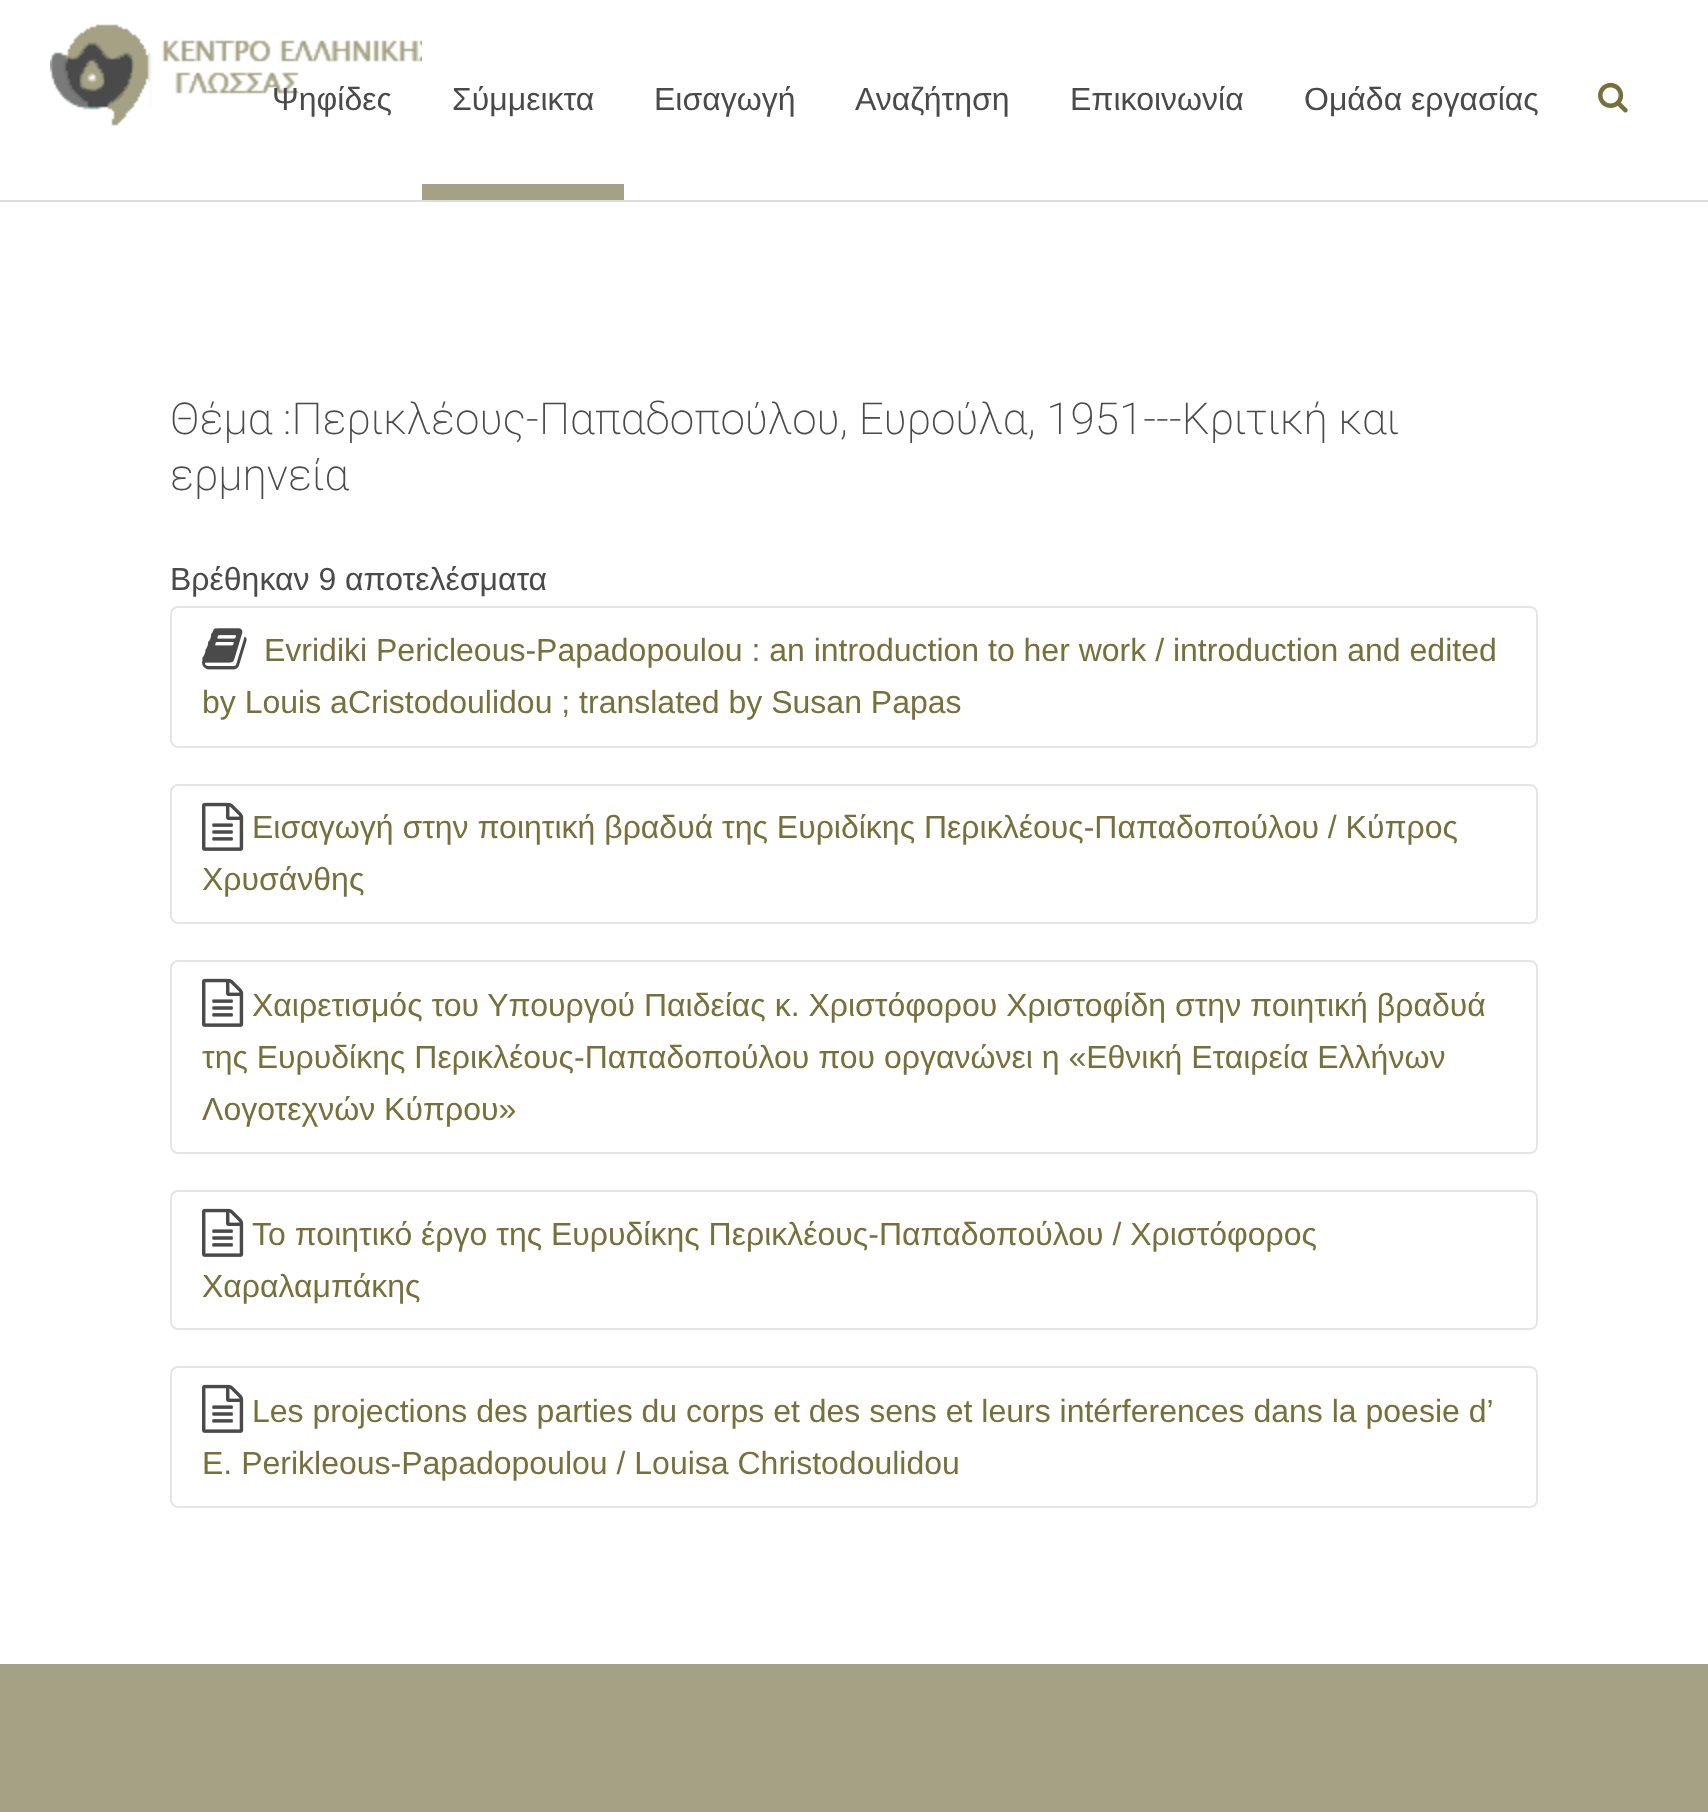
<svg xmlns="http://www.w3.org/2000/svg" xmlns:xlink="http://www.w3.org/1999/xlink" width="1708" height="1812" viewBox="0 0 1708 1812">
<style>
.cls-1{font:32px Liberation Sans;fill:#4a4a4a}
.cls-2{font:200 44px Roboto;fill:#4a4a4a}
.cls-3{font:32px Liberation Sans;fill:#78703a}
</style>
<rect width="100%" height="100%" fill="#ffffff"/>
<image xlink:href="image0.png" x="50" y="24" width="372" height="102"/>
<rect fill="#a5a184" x="422" y="184" width="202" height="16"/>
<image xlink:href="image1.png" x="1598" y="82" width="30" height="31"/>
<rect fill="#dddddd" x="0" y="200" width="1708" height="2"/>
<rect fill="none" stroke="#e5e5e5" stroke-width="2" x="171" y="607" width="1366" height="140" rx="7"/>
<image xlink:href="image2.png" x="202" y="628" width="45" height="42"/>
<rect fill="none" stroke="#e5e5e5" stroke-width="2" x="171" y="785" width="1366" height="138" rx="7"/>
<image xlink:href="image3.png" x="202" y="802" width="42" height="49"/>
<rect fill="none" stroke="#e5e5e5" stroke-width="2" x="171" y="961" width="1366" height="192" rx="7"/>
<image xlink:href="image3.png" x="202" y="978" width="42" height="49"/>
<rect fill="none" stroke="#e5e5e5" stroke-width="2" x="171" y="1191" width="1366" height="138" rx="7"/>
<image xlink:href="image3.png" x="202" y="1208" width="42" height="49"/>
<rect fill="none" stroke="#e5e5e5" stroke-width="2" x="171" y="1367" width="1366" height="140" rx="7"/>
<image xlink:href="image3.png" x="202" y="1384" width="42" height="49"/>
<rect fill="#a5a184" x="0" y="1664" width="1708" height="148"/>
<text class="cls-1" x="272" y="110">Ψηφίδες</text>
<text class="cls-1" x="452" y="110">Σύμμεικτα</text>
<text class="cls-1" x="654" y="110">Εισαγωγή</text>
<text class="cls-1" x="855" y="110">Αναζήτηση</text>
<text class="cls-1" x="1070" y="110">Επικοινωνία</text>
<text class="cls-1" x="1304" y="110">Ομάδα εργασίας</text>
<text class="cls-2"><tspan x="170" y="434">Θέμα :Περικλέους-Παπαδοπούλου, Ευρούλα, 1951---Κριτική και</tspan><tspan x="170" y="490">ερμηνεία</tspan></text>
<text class="cls-1" x="170" y="590">Βρέθηκαν 9 αποτελέσματα</text>
<text class="cls-3" x="264" y="661">Evridiki Pericleous-Papadopoulou : an introduction to her work / introduction and edited</text>
<text class="cls-3" x="202" y="713">by Louis aCristodoulidou ; translated by Susan Papas</text>
<text class="cls-3" x="252" y="838">Εισαγωγή στην ποιητική βραδυά της Ευριδίκης Περικλέους-Παπαδοπούλου / Κύπρος</text>
<text class="cls-3" x="202" y="890">Χρυσάνθης</text>
<text class="cls-3" x="252" y="1016">Χαιρετισμός του Υπουργού Παιδείας κ. Χριστόφορου Χριστοφίδη στην ποιητική βραδυά</text>
<text class="cls-3"><tspan x="202" y="1068">της Ευρυδίκης Περικλέους-Παπαδοπούλου που οργανώνει η «Εθνική Εταιρεία Ελλήνων</tspan><tspan x="202" y="1120">Λογοτεχνών Κύπρου»</tspan></text>
<text class="cls-3" x="252" y="1245">Το ποιητικό έργο της Ευρυδίκης Περικλέους-Παπαδοπούλου / Χριστόφορος</text>
<text class="cls-3" x="202" y="1297">Χαραλαμπάκης</text>
<text class="cls-3" x="252" y="1422">Les projections des parties du corps et des sens et leurs intérferences dans la poesie d’</text>
<text class="cls-3" x="202" y="1474">E. Perikleous-Papadopoulou / Louisa Christodoulidou</text>
</svg>
